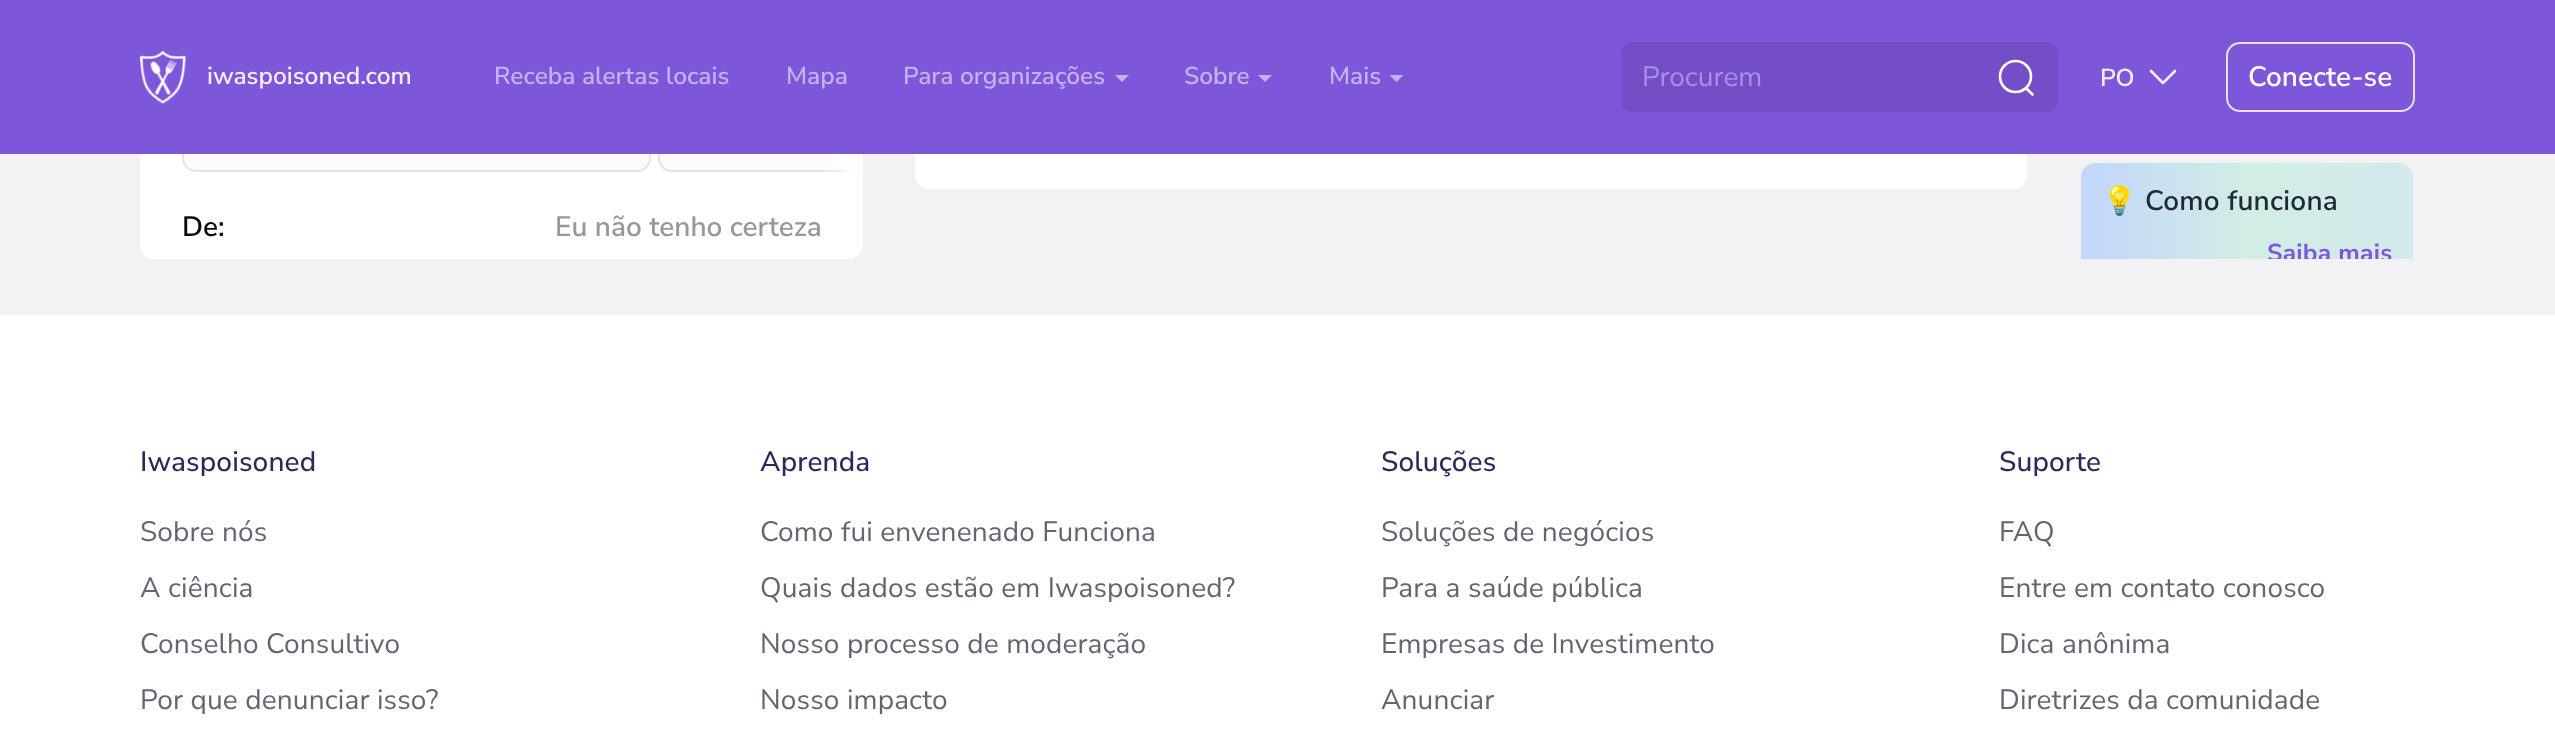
<svg xmlns="http://www.w3.org/2000/svg" xmlns:xlink="http://www.w3.org/1999/xlink" width="2555" height="738" viewBox="0 0 2555 738">
<style>
.cls-1{font:600 24.5px Nunito Sans;fill:#f2eefb}
.cls-2{font:600 24.5px Nunito Sans;fill:#c4b1ee}
.cls-3{font:28px Nunito Sans;fill:#a98ee6}
.cls-4{font:600 28px Nunito Sans;fill:#ffffff}
.cls-5{font:600 28px Nunito Sans;fill:#080b11}
.cls-6{font:600 28px Nunito Sans;fill:#97989b}
.cls-7{font:bold 28px Noto Color Emoji;letter-spacing:0.25px;fill:#222837}
.cls-8{font:600 28px Nunito Sans;letter-spacing:0.25px;fill:#222837}
.cls-9{font:bold 24.5px Nunito Sans;letter-spacing:0.25px;fill:#7e56da}
.cls-10{font:500 28px Nunito Sans;letter-spacing:0.15px;fill:#35245c}
.cls-11{font:28px Nunito Sans;letter-spacing:0.15px;fill:#616670}
</style>
<defs>
<linearGradient id="g1" gradientUnits="userSpaceOnUse" x1="821" y1="137" x2="863" y2="137"><stop offset="0" stop-color="#ffffff" stop-opacity="0"/><stop offset="0.9" stop-color="#ffffff"/></linearGradient>
<linearGradient id="g2" gradientUnits="userSpaceOnUse" x1="2081" y1="229" x2="2413" y2="229"><stop offset="0" stop-color="#c2d6fb"/><stop offset="0.5" stop-color="#d1ede4"/><stop offset="1" stop-color="#d3e9eb"/></linearGradient>
<clipPath id="clip1"><rect x="2079" y="0" width="336" height="259"/></clipPath>
</defs>
<rect width="100%" height="100%" fill="#f2f2f4"/>
<rect fill="#ffffff" x="915" y="-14" width="1112" height="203" rx="14"/>
<rect fill="#ffffff" x="140" y="-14" width="723" height="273" rx="14"/>
<rect fill="#fbfbfb" stroke="#e2e4e6" stroke-width="2" x="183" y="103" width="467" height="68" rx="13"/>
<path fill="#fbfbfb" d="M672 102H863V172H672C664.5 172 658 165.5 658 158V116C658 108.5 664.5 102 672 102Z"/>
<path fill="#e2e4e6" d="M672 102C664 102 658 108 658 116V158C658 166 664 172 672 172H863V170H672C665 170 660 165 660 158V116C660 109 665 104 672 104H863V102Z"/>
<rect fill="#7e56da" x="0" y="0" width="2555" height="154"/>
<image xlink:href="image0.png" x="140" y="50" width="46" height="54"/>
<path fill="#c4b1ee" d="M1115 75H1129L1122 82Z"/>
<path fill="#c4b1ee" d="M1258 75H1272L1265 82Z"/>
<path fill="#c4b1ee" d="M1389.5 75H1403.5L1396.5 82Z"/>
<rect fill="#734ec6" stroke="#734ec6" stroke-width="2" x="1622" y="43" width="435" height="68" rx="10"/>
<circle fill="none" stroke="#ffffff" stroke-width="2.6" cx="2015.5" cy="76.5" r="15.5"/>
<path fill="none" stroke="#ffffff" stroke-width="2.6" stroke-linecap="round" stroke-linejoin="round" d="M2026.5 88.5L2032.5 94.5"/>
<path fill="none" stroke="#f2eefb" stroke-width="2.6" stroke-linecap="round" stroke-linejoin="round" d="M2175 71L2163 83L2151 71"/>
<rect fill="none" stroke="#e2e4e6" stroke-width="2" x="2227" y="43" width="187" height="68" rx="13"/>
<rect fill="url(#g1)" x="824" y="154" width="39" height="18"/>
<path fill="url(#g2)" d="M2095 163H2399C2406.5 163 2413 169.5 2413 177V259H2081V177C2081 169.5 2087.5 163 2095 163Z"/>
<rect fill="#ffffff" x="0" y="315" width="2555" height="423"/>
<text class="cls-1" x="207" y="84">iwaspoisoned.com</text>
<text class="cls-2" x="494" y="84">Receba alertas locais</text>
<text class="cls-2" x="786" y="84">Mapa</text>
<text class="cls-2" x="903" y="84">Para organizações</text>
<text class="cls-2" x="1184" y="84">Sobre</text>
<text class="cls-2" x="1329" y="84">Mais</text>
<text class="cls-3" x="1642" y="86">Procurem</text>
<text class="cls-1" x="2100" y="86">PO</text>
<text class="cls-4" x="2248" y="86">Conecte-se</text>
<text class="cls-5" x="182" y="236">De:</text>
<text class="cls-6" x="555" y="236">Eu não tenho certeza</text>
<text class="cls-7" x="2102" y="210">💡</text>
<text class="cls-8" x="2145" y="210">Como funciona</text>
<g clip-path="url(#clip1)">
<text class="cls-9" x="2267" y="261">Saiba mais</text>
</g>
<text class="cls-10" x="140" y="471">Iwaspoisoned</text>
<text class="cls-11" x="140" y="541">Sobre nós</text>
<text class="cls-11" x="140" y="597">A ciência</text>
<text class="cls-11" x="140" y="653">Conselho Consultivo</text>
<text class="cls-11" x="140" y="709">Por que denunciar isso?</text>
<text class="cls-10" x="760" y="471">Aprenda</text>
<text class="cls-11" x="760" y="541">Como fui envenenado Funciona</text>
<text class="cls-11" x="760" y="597">Quais dados estão em Iwaspoisoned?</text>
<text class="cls-11" x="760" y="653">Nosso processo de moderação</text>
<text class="cls-11" x="760" y="709">Nosso impacto</text>
<text class="cls-10" x="1381" y="471">Soluções</text>
<text class="cls-11" x="1381" y="541">Soluções de negócios</text>
<text class="cls-11" x="1381" y="597">Para a saúde pública</text>
<text class="cls-11" x="1381" y="653">Empresas de Investimento</text>
<text class="cls-11" x="1381" y="709">Anunciar</text>
<text class="cls-10" x="1999" y="471">Suporte</text>
<text class="cls-11" x="1999" y="541">FAQ</text>
<text class="cls-11" x="1999" y="597">Entre em contato conosco</text>
<text class="cls-11" x="1999" y="653">Dica anônima</text>
<text class="cls-11" x="1999" y="709">Diretrizes da comunidade</text>
</svg>
